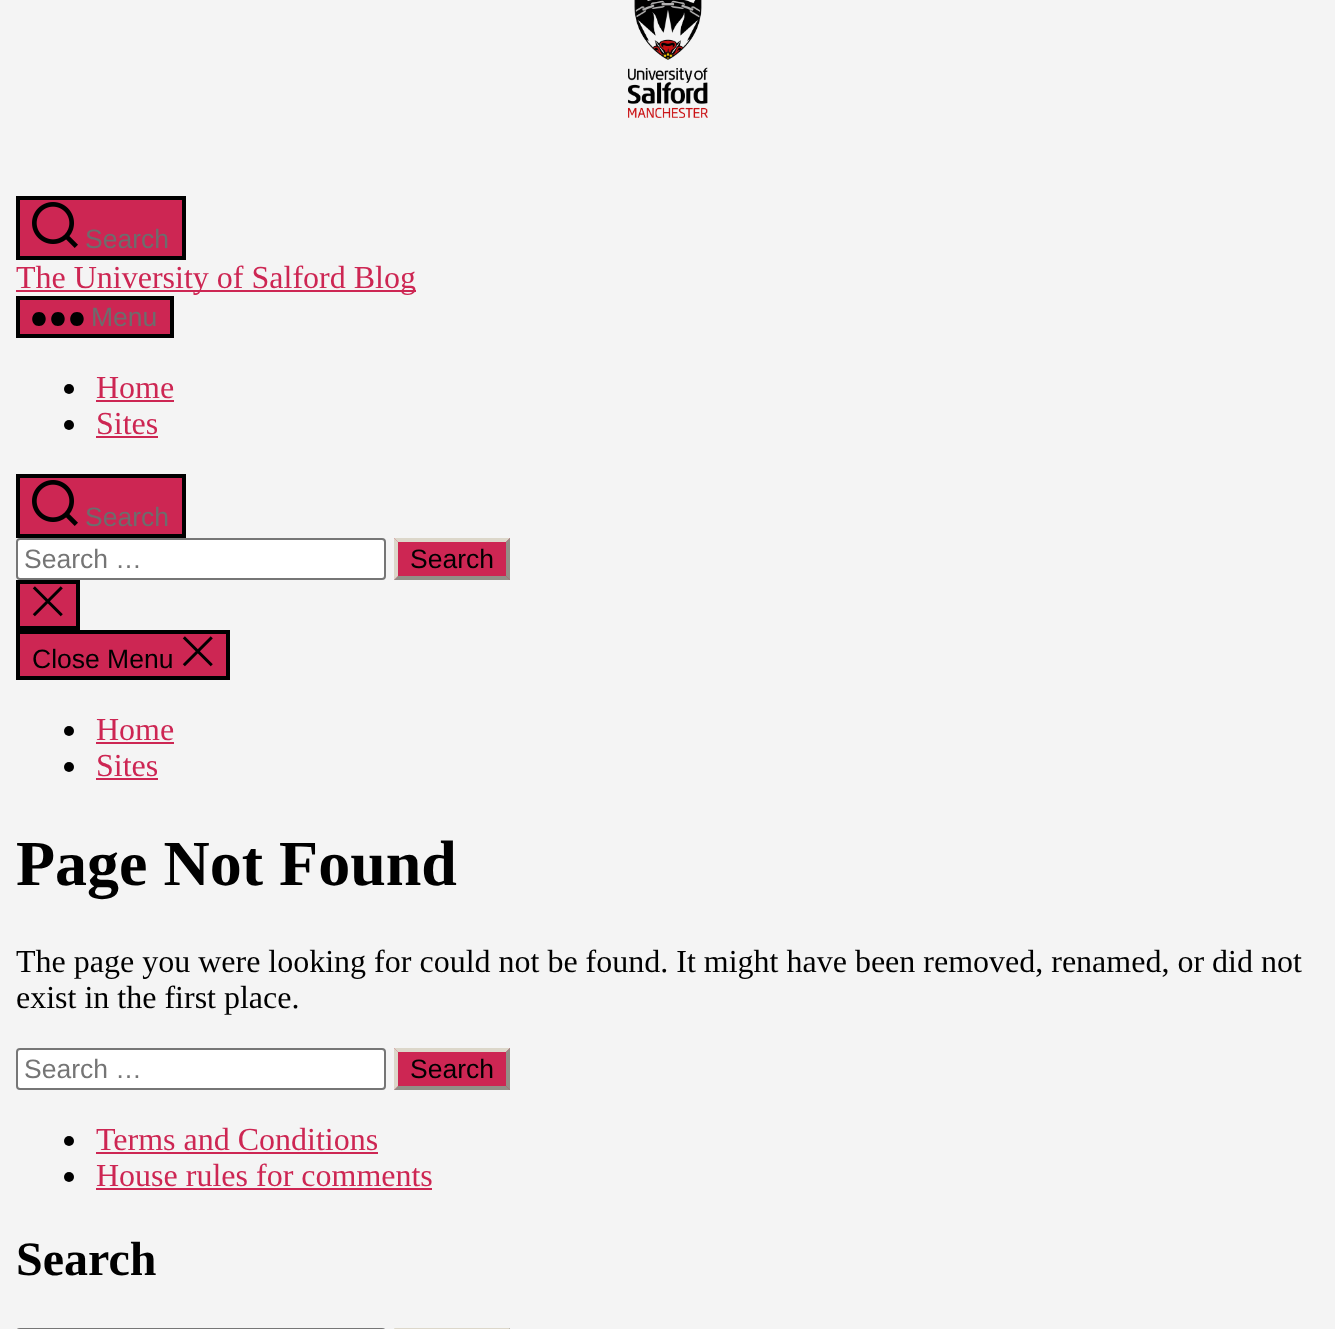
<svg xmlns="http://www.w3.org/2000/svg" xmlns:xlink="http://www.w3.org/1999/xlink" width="1335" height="1329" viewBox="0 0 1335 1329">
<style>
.cls-1{font:26.5px Liberation Sans;fill:#6d6d6d}
.cls-2{font:32px Liberation Serif;fill:#cd2653}
.cls-3{font:26.5px Liberation Sans;fill:#757575}
.cls-4{font:26.5px Liberation Sans;fill:#000000}
.cls-5{font:bold 64px Liberation Serif;fill:#000000}
.cls-6{font:32px Liberation Serif;fill:#000000}
.cls-7{font:bold 48px Liberation Serif;fill:#000000}
</style>
<rect width="100%" height="100%" fill="#f4f4f4"/>
<image xlink:href="image0.png" x="628" y="0" width="80" height="118"/>
<rect fill="#cd2653" stroke="#000000" stroke-width="4" x="18" y="198" width="166" height="60"/>
<image xlink:href="image1.png" x="32" y="202" width="46" height="46"/>
<rect fill="#cd2653" x="16" y="290" width="400" height="2"/>
<rect fill="#cd2653" stroke="#000000" stroke-width="4" x="18" y="298" width="154" height="38"/>
<path fill="#000000" fill-rule="evenodd" d="M39 326C30 326 30 312 39 312C48 312 48 326 39 326ZM58 326C49 326 49 312 58 312C67 312 67 326 58 326ZM77 326C68 326 68 312 77 312C86 312 86 326 77 326Z"/>
<circle fill="#000000" cx="69" cy="389" r="5"/>
<rect fill="#cd2653" x="96" y="400" width="78" height="2"/>
<circle fill="#000000" cx="69" cy="425" r="5"/>
<rect fill="#cd2653" x="96" y="436" width="62" height="2"/>
<rect fill="#cd2653" stroke="#000000" stroke-width="4" x="18" y="476" width="166" height="60"/>
<image xlink:href="image1.png" x="32" y="480" width="46" height="46"/>
<rect fill="#ffffff" stroke="#767676" stroke-width="2" x="17" y="539" width="368" height="40" rx="3"/>
<rect fill="#cd2653" x="394" y="538" width="116" height="42"/>
<path fill="#dcd7ca" d="M394 538H510L506 542H398Z"/>
<path fill="#938f87" d="M510 538V580L506 576V542Z"/>
<path fill="#938f87" d="M510 580H394L398 576H506Z"/>
<path fill="#dcd7ca" d="M394 580V538L398 542V576Z"/>
<rect fill="#cd2653" stroke="#000000" stroke-width="4" x="18" y="582" width="60" height="46"/>
<image xlink:href="image2.png" x="32" y="586" width="31" height="31"/>
<rect fill="#cd2653" stroke="#000000" stroke-width="4" x="18" y="632" width="210" height="46"/>
<image xlink:href="image2.png" x="182" y="636" width="31" height="31"/>
<circle fill="#000000" cx="69" cy="731" r="5"/>
<rect fill="#cd2653" x="96" y="742" width="78" height="2"/>
<circle fill="#000000" cx="69" cy="767" r="5"/>
<rect fill="#cd2653" x="96" y="778" width="62" height="2"/>
<rect fill="#ffffff" stroke="#767676" stroke-width="2" x="17" y="1049" width="368" height="40" rx="3"/>
<rect fill="#cd2653" x="394" y="1048" width="116" height="42"/>
<path fill="#dcd7ca" d="M394 1048H510L506 1052H398Z"/>
<path fill="#938f87" d="M510 1048V1090L506 1086V1052Z"/>
<path fill="#938f87" d="M510 1090H394L398 1086H506Z"/>
<path fill="#dcd7ca" d="M394 1090V1048L398 1052V1086Z"/>
<circle fill="#000000" cx="69" cy="1141" r="5"/>
<rect fill="#cd2653" x="96" y="1152" width="282" height="2"/>
<circle fill="#000000" cx="69" cy="1177" r="5"/>
<rect fill="#cd2653" x="96" y="1188" width="336" height="2"/>
<rect fill="none" stroke="#767676" stroke-width="2" x="17" y="1329" width="368" height="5" rx="3"/>
<path fill="#dcd7ca" d="M394 1328H510L506 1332H398Z"/>
<path fill="#938f87" d="M510 1328V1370L506 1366V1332Z"/>
<path fill="#dcd7ca" d="M394 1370V1328L398 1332V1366Z"/>
<text class="cls-1" x="85" y="248">Search</text>
<text class="cls-2" x="16" y="288">The University of Salford Blog</text>
<text class="cls-1" x="91" y="326">Menu</text>
<text class="cls-2"><tspan x="96" y="398">Home</tspan><tspan x="96" y="434">Sites</tspan></text>
<text class="cls-1" x="85" y="526">Search</text>
<text class="cls-3" x="24" y="568">Search …</text>
<text class="cls-4" x="410" y="568">Search</text>
<text class="cls-4" x="32" y="668">Close Menu</text>
<text class="cls-2"><tspan x="96" y="740">Home</tspan><tspan x="96" y="776">Sites</tspan></text>
<text class="cls-5" x="16" y="885">Page Not Found</text>
<text class="cls-6"><tspan x="16" y="972">The page you were looking for could not be found. It might have been removed, renamed, or did not</tspan><tspan x="16" y="1008">exist in the first place.</tspan></text>
<text class="cls-3" x="24" y="1078">Search …</text>
<text class="cls-4" x="410" y="1078">Search</text>
<text class="cls-2"><tspan x="96" y="1150">Terms and Conditions</tspan><tspan x="96" y="1186">House rules for comments</tspan></text>
<text class="cls-7" x="16" y="1275">Search</text>
</svg>
